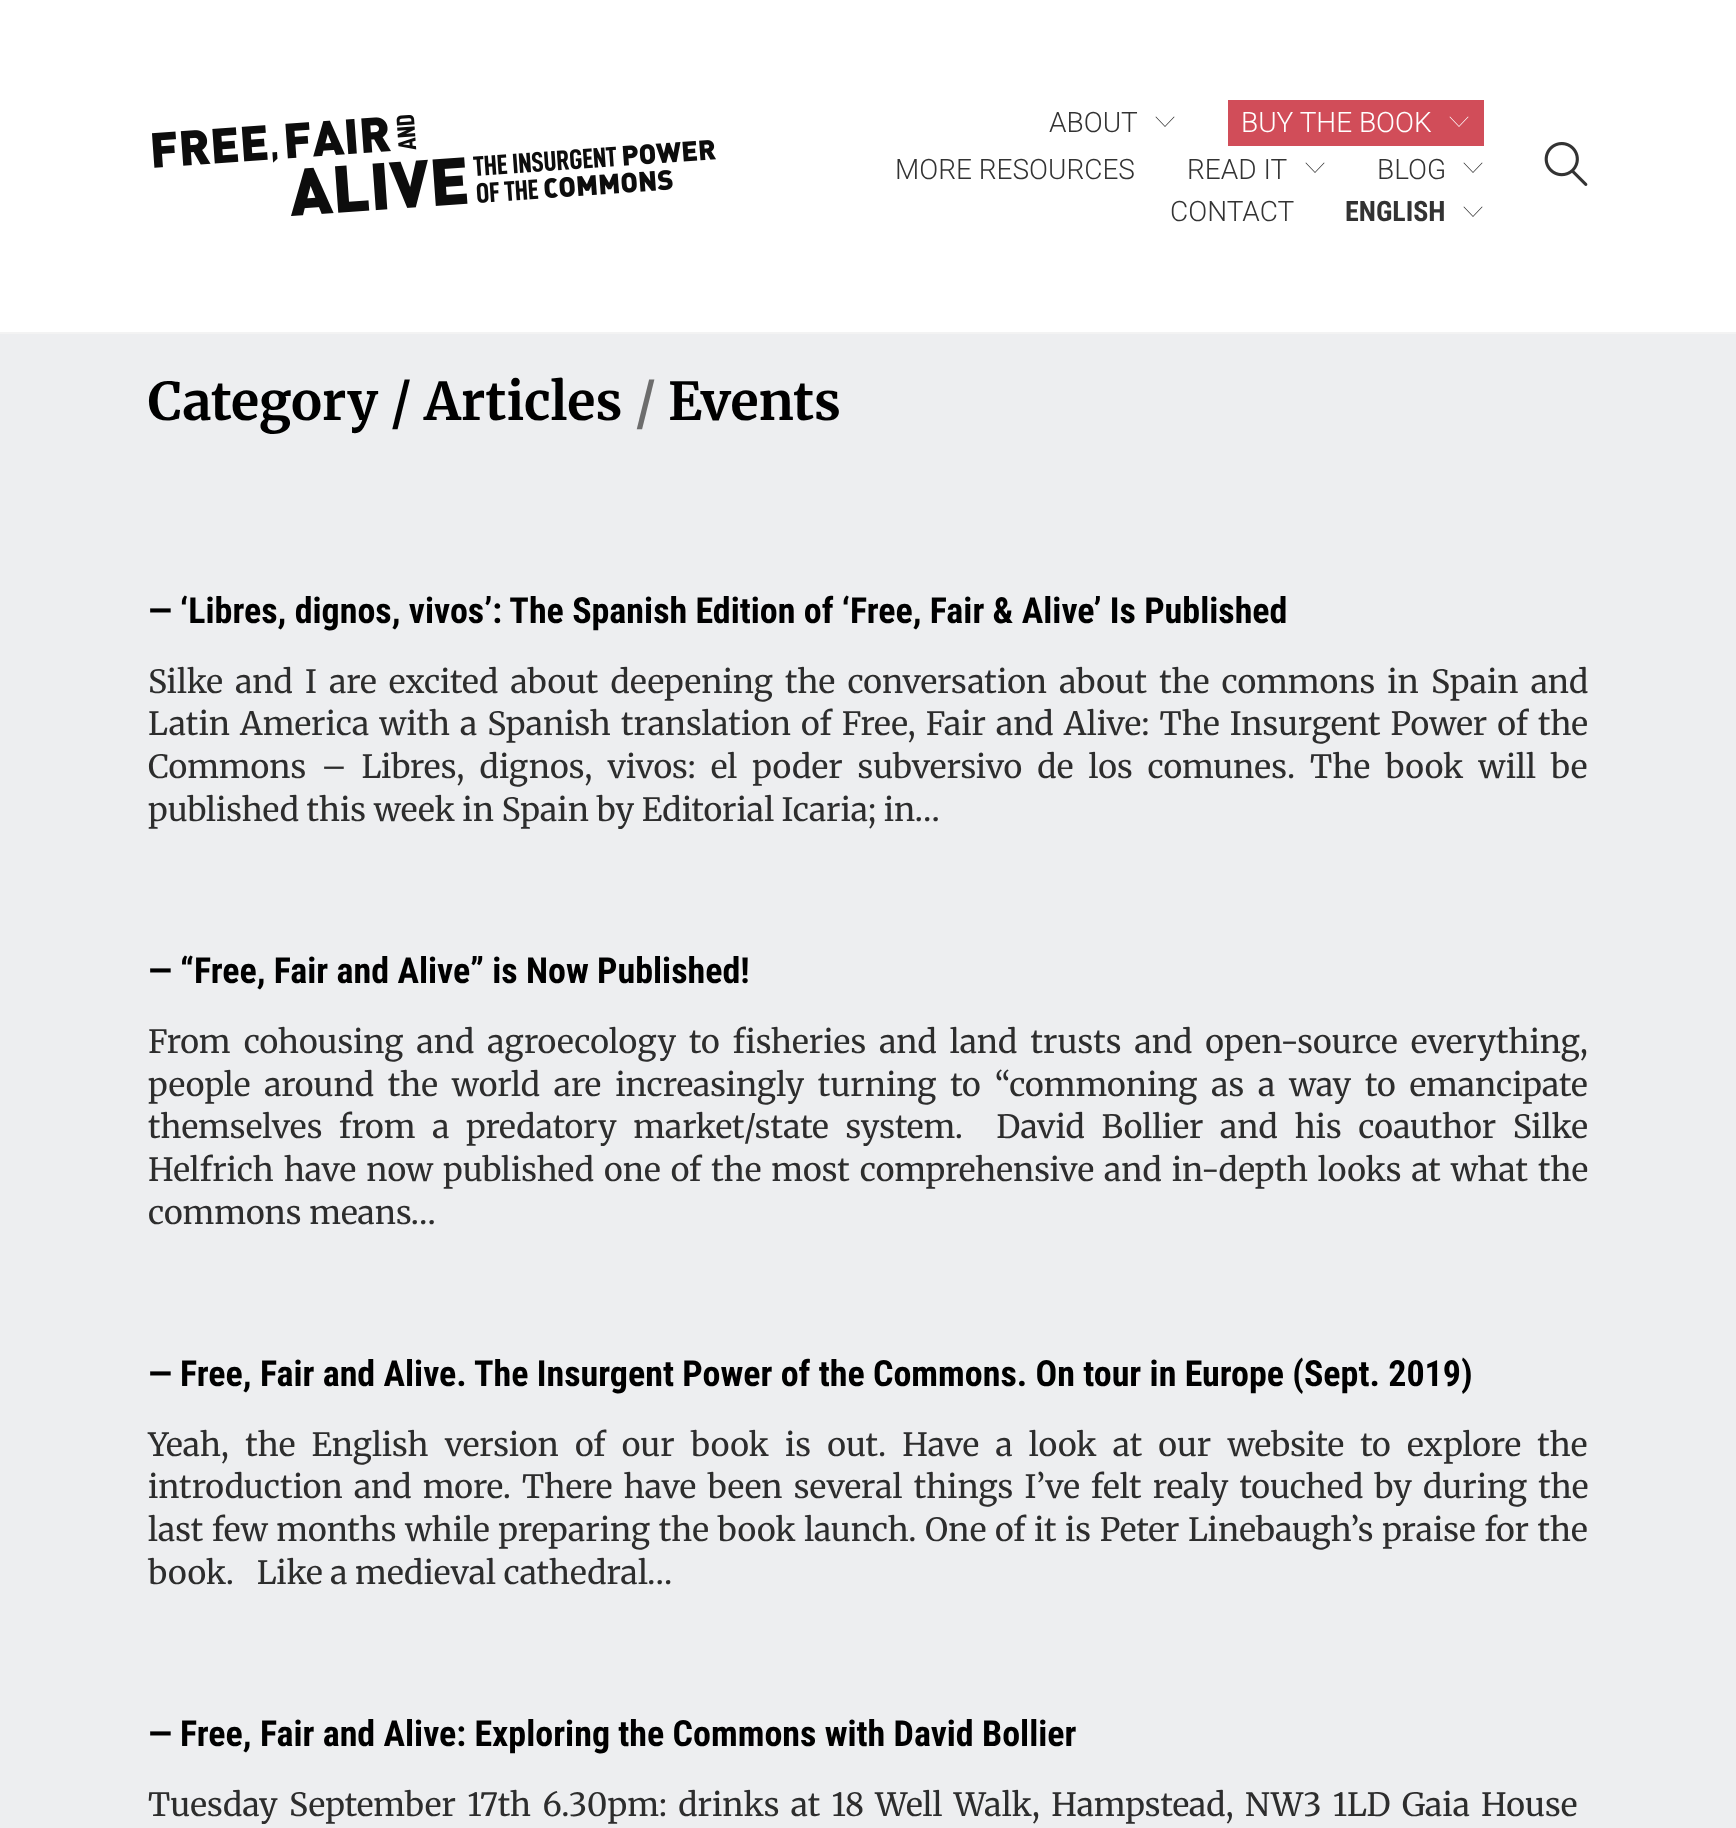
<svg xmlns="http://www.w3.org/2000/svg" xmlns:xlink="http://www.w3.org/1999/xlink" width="1736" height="1828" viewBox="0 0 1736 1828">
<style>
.cls-1{font:300 28px Roboto;fill:#333333}
.cls-2{font:300 28px Roboto;fill:#ffffff}
.cls-3{font:bold 28px Roboto Condensed;fill:#333333}
.cls-4{font:bold 52px Merriweather;fill:#000000}
.cls-5{font:bold 52px Merriweather;fill:#6d6d6d}
.cls-6{font:bold 36px Roboto Condensed;fill:#000000}
.cls-7{font:32px Merriweather;fill:#2d2d2d}
</style>
<rect width="100%" height="100%" fill="#edeef0"/>
<rect fill="#ffffff" x="0" y="0" width="1736" height="332"/>
<rect fill="#f3f3f3" x="0" y="332" width="1736" height="2"/>
<image xlink:href="image0.png" x="152" y="115" width="564" height="101"/>
<path fill="#333333" d="M1165 127L1155.5 117L1156 116.5L1165 126L1174 116.5L1174.5 117Z"/>
<rect fill="#d14d59" x="1228" y="100" width="256" height="46"/>
<path fill="#ffffff" d="M1459 127L1449.5 117L1450 116.5L1459 126L1468 116.5L1468.5 117Z"/>
<path fill="#333333" d="M1315 173L1305.5 163L1306 162.5L1315 172L1324 162.5L1324.5 163Z"/>
<path fill="#333333" d="M1473 173L1463.5 163L1464 162.5L1473 172L1482 162.5L1482.5 163Z"/>
<path fill="#333333" d="M1473 217L1463.5 207L1464 206.5L1473 216L1482 206.5L1482.5 207Z"/>
<image xlink:href="image1.png" x="1544" y="142" width="44" height="44"/>
<text class="cls-1" x="1049" y="132">ABOUT</text>
<text class="cls-2" x="1241" y="132">BUY THE BOOK</text>
<text class="cls-1" x="895" y="179">MORE RESOURCES</text>
<text class="cls-1" x="1187" y="179">READ IT</text>
<text class="cls-1" x="1377" y="179">BLOG</text>
<text class="cls-1" x="1170" y="221">CONTACT</text>
<text class="cls-3" x="1345" y="221">ENGLISH</text>
<text class="cls-4" x="148" y="420">Category / Articles</text>
<text class="cls-5" x="635" y="420">/</text>
<text class="cls-4" x="668" y="420">Events</text>
<text class="cls-6" x="148" y="623">— ‘Libres, dignos, vivos’: The Spanish Edition of ‘Free, Fair &amp; Alive’ Is Published</text>
<text class="cls-7"><tspan x="148" y="693" word-spacing="4.6">Silke and I are excited about deepening the conversation about the commons in Spain and</tspan><tspan x="148" y="735" word-spacing="2.5">Latin America with a Spanish translation of Free, Fair and Alive: The Insurgent Power of the</tspan><tspan x="148" y="778" word-spacing="7.4">Commons – Libres, dignos, vivos: el poder subversivo de los comunes. The book will be</tspan><tspan x="148" y="821">published this week in Spain by Editorial Icaria; in…</tspan></text>
<text class="cls-6" x="148" y="983">— “Free, Fair and Alive” is Now Published!</text>
<text class="cls-7" xml:space="preserve"><tspan x="148" y="1053" word-spacing="5.5">From cohousing and agroecology to fisheries and land trusts and open-source everything,</tspan><tspan x="148" y="1096" word-spacing="6.25">people around the world are increasingly turning to “commoning as a way to emancipate</tspan><tspan x="148" y="1138" word-spacing="9.1">themselves from a predatory market/state system.  David Bollier and his coauthor Silke</tspan><tspan x="148" y="1181" word-spacing="2.4">Helfrich have now published one of the most comprehensive and in-depth looks at what the</tspan><tspan x="148" y="1224">commons means…</tspan></text>
<text class="cls-6" x="148" y="1386">— Free, Fair and Alive. The Insurgent Power of the Commons. On tour in Europe (Sept. 2019)</text>
<text class="cls-7" xml:space="preserve"><tspan x="148" y="1456" word-spacing="8.6">Yeah, the English version of our book is out. Have a look at our website to explore the</tspan><tspan x="148" y="1498" word-spacing="3.6">introduction and more. There have been several things I’ve felt realy touched by during the</tspan><tspan x="148" y="1541" word-spacing="1">last few months while preparing the book launch. One of it is Peter Linebaugh’s praise for the</tspan><tspan x="148" y="1584">book.   Like a medieval cathedral…</tspan></text>
<text class="cls-6" x="148" y="1746">— Free, Fair and Alive: Exploring the Commons with David Bollier</text>
<text class="cls-7" x="148" y="1816" word-spacing="3.75">Tuesday September 17th 6.30pm: drinks at 18 Well Walk, Hampstead, NW3 1LD Gaia House</text>
</svg>
